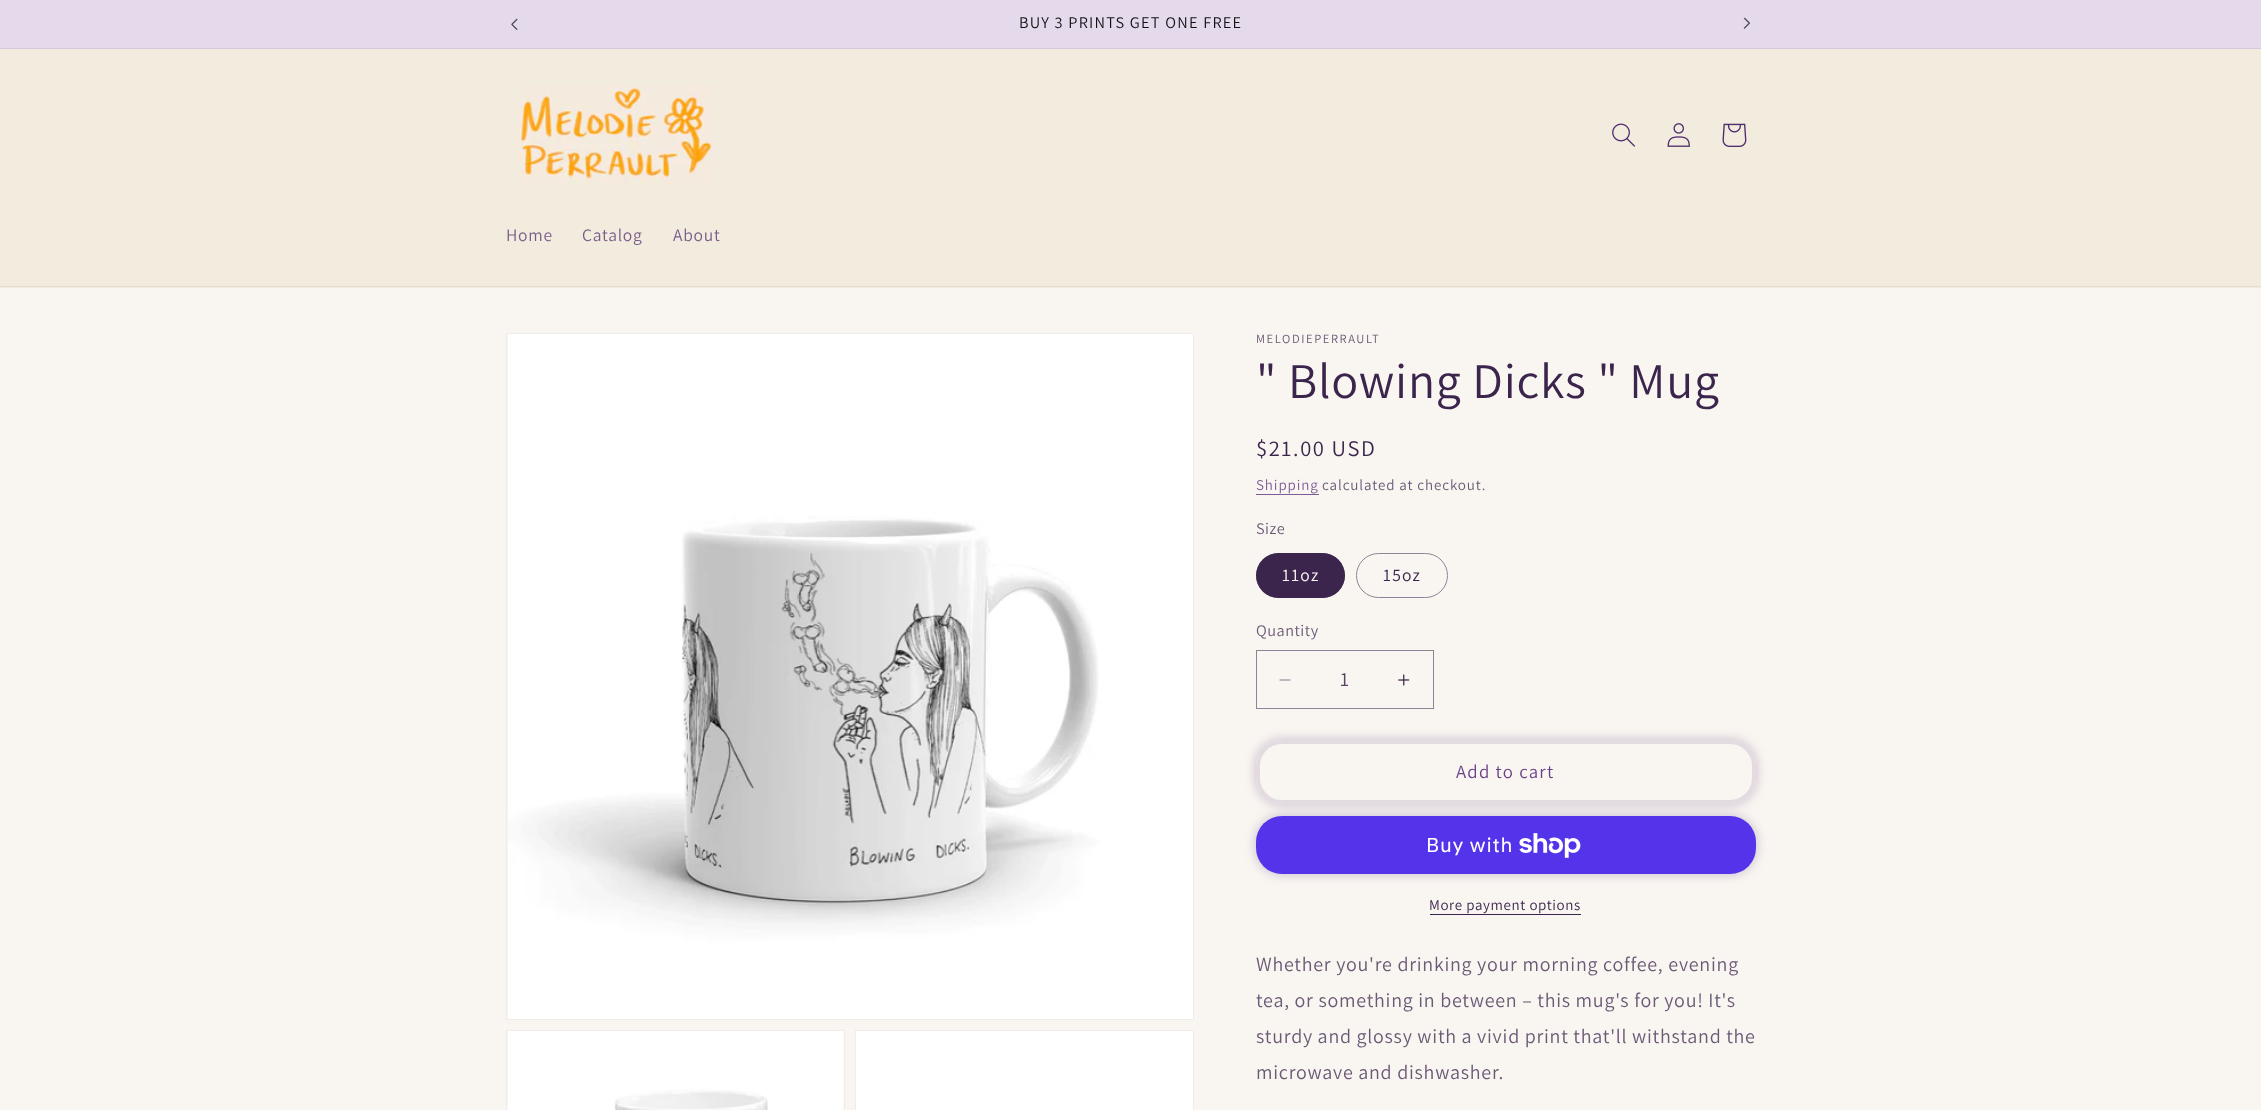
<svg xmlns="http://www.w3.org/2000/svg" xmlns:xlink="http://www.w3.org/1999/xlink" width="2261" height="1110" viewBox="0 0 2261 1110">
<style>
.cls-1{font:16.25px Assistant;letter-spacing:1.25px;fill:#121212}
.cls-2{font:17.5px Assistant;letter-spacing:0.75px;fill:#7a5d8a}
.cls-3{font:12.5px Assistant;letter-spacing:1.6px;fill:#6b5976}
.cls-4{font:50px Assistant;letter-spacing:0.75px;fill:#3c254d}
.cls-5{font:22.5px Assistant;letter-spacing:1.6px;fill:#3c254d}
.cls-6{font:15px Assistant;letter-spacing:0.9px;fill:#7f5c99}
.cls-7{font:15px Assistant;letter-spacing:0.9px;fill:#6b5976}
.cls-8{font:16.25px Assistant;letter-spacing:0.5px;fill:#6b5976}
.cls-9{font:17.5px Assistant;letter-spacing:1.25px;fill:#f9f6f1}
.cls-10{font:17.5px Assistant;letter-spacing:1.25px;fill:#3c254d}
.cls-11{font:20px Assistant;fill:#584466}
.cls-12{font:18.75px Assistant;letter-spacing:1.25px;fill:#6a4189}
.cls-13{font:20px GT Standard;letter-spacing:0.75px;fill:#ffffff}
.cls-14{font:15px Assistant;letter-spacing:0.6px;fill:#3c254d}
.cls-15{font:20px Assistant;letter-spacing:0.75px;fill:#6b5976}
</style>
<rect width="100%" height="100%" fill="#f9f6f1"/>
<rect fill="#e5daec" x="0" y="0" width="2261" height="48"/>
<rect fill="#d4cadb" x="0" y="48" width="2261" height="1"/>
<image xlink:href="image0.png" x="511" y="18" width="7" height="12"/>
<image xlink:href="image1.png" x="1743" y="17" width="7" height="12"/>
<rect fill="#f2ecdf" x="0" y="49" width="2261" height="239"/>
<rect fill="#e5ddd6" x="0" y="286" width="2261" height="1"/>
<image xlink:href="image2.png" x="516" y="84" width="200" height="100"/>
<image xlink:href="image3.png" x="1612" y="123" width="23" height="24"/>
<image xlink:href="image4.png" x="1667" y="123" width="23" height="24"/>
<image xlink:href="image5.png" x="1722" y="123" width="25" height="24"/>
<rect fill="none" stroke="#f0ece9" x="506.5" y="333.5" width="687" height="686"/>
<image xlink:href="image6.png" x="508" y="334" width="685" height="685"/>
<rect fill="none" stroke="#f0ece9" x="506.5" y="1030.5" width="338" height="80"/>
<image xlink:href="image7.png" x="508" y="1031" width="336" height="79"/>
<rect fill="none" stroke="#f0ece9" x="855.5" y="1030.5" width="338" height="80"/>
<rect fill="#ffffff" x="856" y="1031" width="337" height="79"/>
<rect fill="#7f5c99" x="1256" y="494" width="63" height="1"/>
<rect fill="#3c254d" x="1256" y="553" width="89" height="45" rx="22.5"/>
<rect fill="none" stroke="#3c254d" stroke-opacity="0.55" x="1256.5" y="553.5" width="88" height="44" rx="22"/>
<rect fill="none" stroke="#918397" x="1356.5" y="553.5" width="91" height="44" rx="22"/>
<image xlink:href="image8.png" x="1279" y="679" width="12" height="2"/>
<image xlink:href="image9.png" x="1398" y="674" width="12" height="12"/>
<rect fill="none" stroke="#918397" x="1256.5" y="650.5" width="177" height="58"/>
<rect fill="#6a4189" fill-opacity="0.35" filter="blur(6px)" x="1256" y="740" width="500" height="64" rx="26"/>
<rect fill="#6a4189" fill-opacity="0.35" filter="blur(6px)" x="1256" y="816" width="500" height="58" rx="26"/>
<rect fill="#f9f6f1" x="1256" y="740" width="500" height="64" rx="26"/>
<rect fill="none" stroke="#f9f6f1" stroke-width="4" x="1258" y="742" width="496" height="60" rx="24"/>
<rect fill="none" stroke="#6a4189" stroke-opacity="0.15" stroke-width="4" x="1258" y="742" width="496" height="60" rx="24"/>
<rect fill="#5433eb" x="1256" y="816" width="500" height="58" rx="26"/>
<image xlink:href="image10.png" x="1519" y="833" width="62" height="25"/>
<rect fill="#3c254d" x="1430" y="914" width="151" height="1"/>
<text class="cls-1" x="1019" y="28">BUY 3 PRINTS GET ONE FREE</text>
<text class="cls-2" x="506" y="241">Home</text>
<text class="cls-2" x="582" y="241">Catalog</text>
<text class="cls-2" x="673" y="241">About</text>
<text class="cls-3" x="1256" y="343">MELODIEPERRAULT</text>
<text class="cls-4" x="1256" y="398">" Blowing Dicks " Mug</text>
<text class="cls-5" x="1256" y="456">$21.00 USD</text>
<text class="cls-6" x="1256" y="490">Shipping</text>
<text class="cls-7" x="1322" y="490">calculated at checkout.</text>
<text class="cls-8" x="1256" y="534">Size</text>
<text class="cls-9" x="1282" y="581">11oz</text>
<text class="cls-10" x="1383" y="581">15oz</text>
<text class="cls-8" x="1256" y="636">Quantity</text>
<text class="cls-11" x="1340" y="686">1</text>
<text class="cls-12" x="1456" y="778">Add to cart</text>
<text class="cls-13" x="1426" y="852">Buy with</text>
<text class="cls-14" x="1429" y="910">More payment options</text>
<text class="cls-15"><tspan x="1256" y="971">Whether you're drinking your morning coffee, evening</tspan><tspan x="1256" y="1007">tea, or something in between – this mug's for you! It's</tspan><tspan x="1256" y="1043">sturdy and glossy with a vivid print that'll withstand the</tspan><tspan x="1256" y="1079">microwave and dishwasher.</tspan></text>
</svg>
